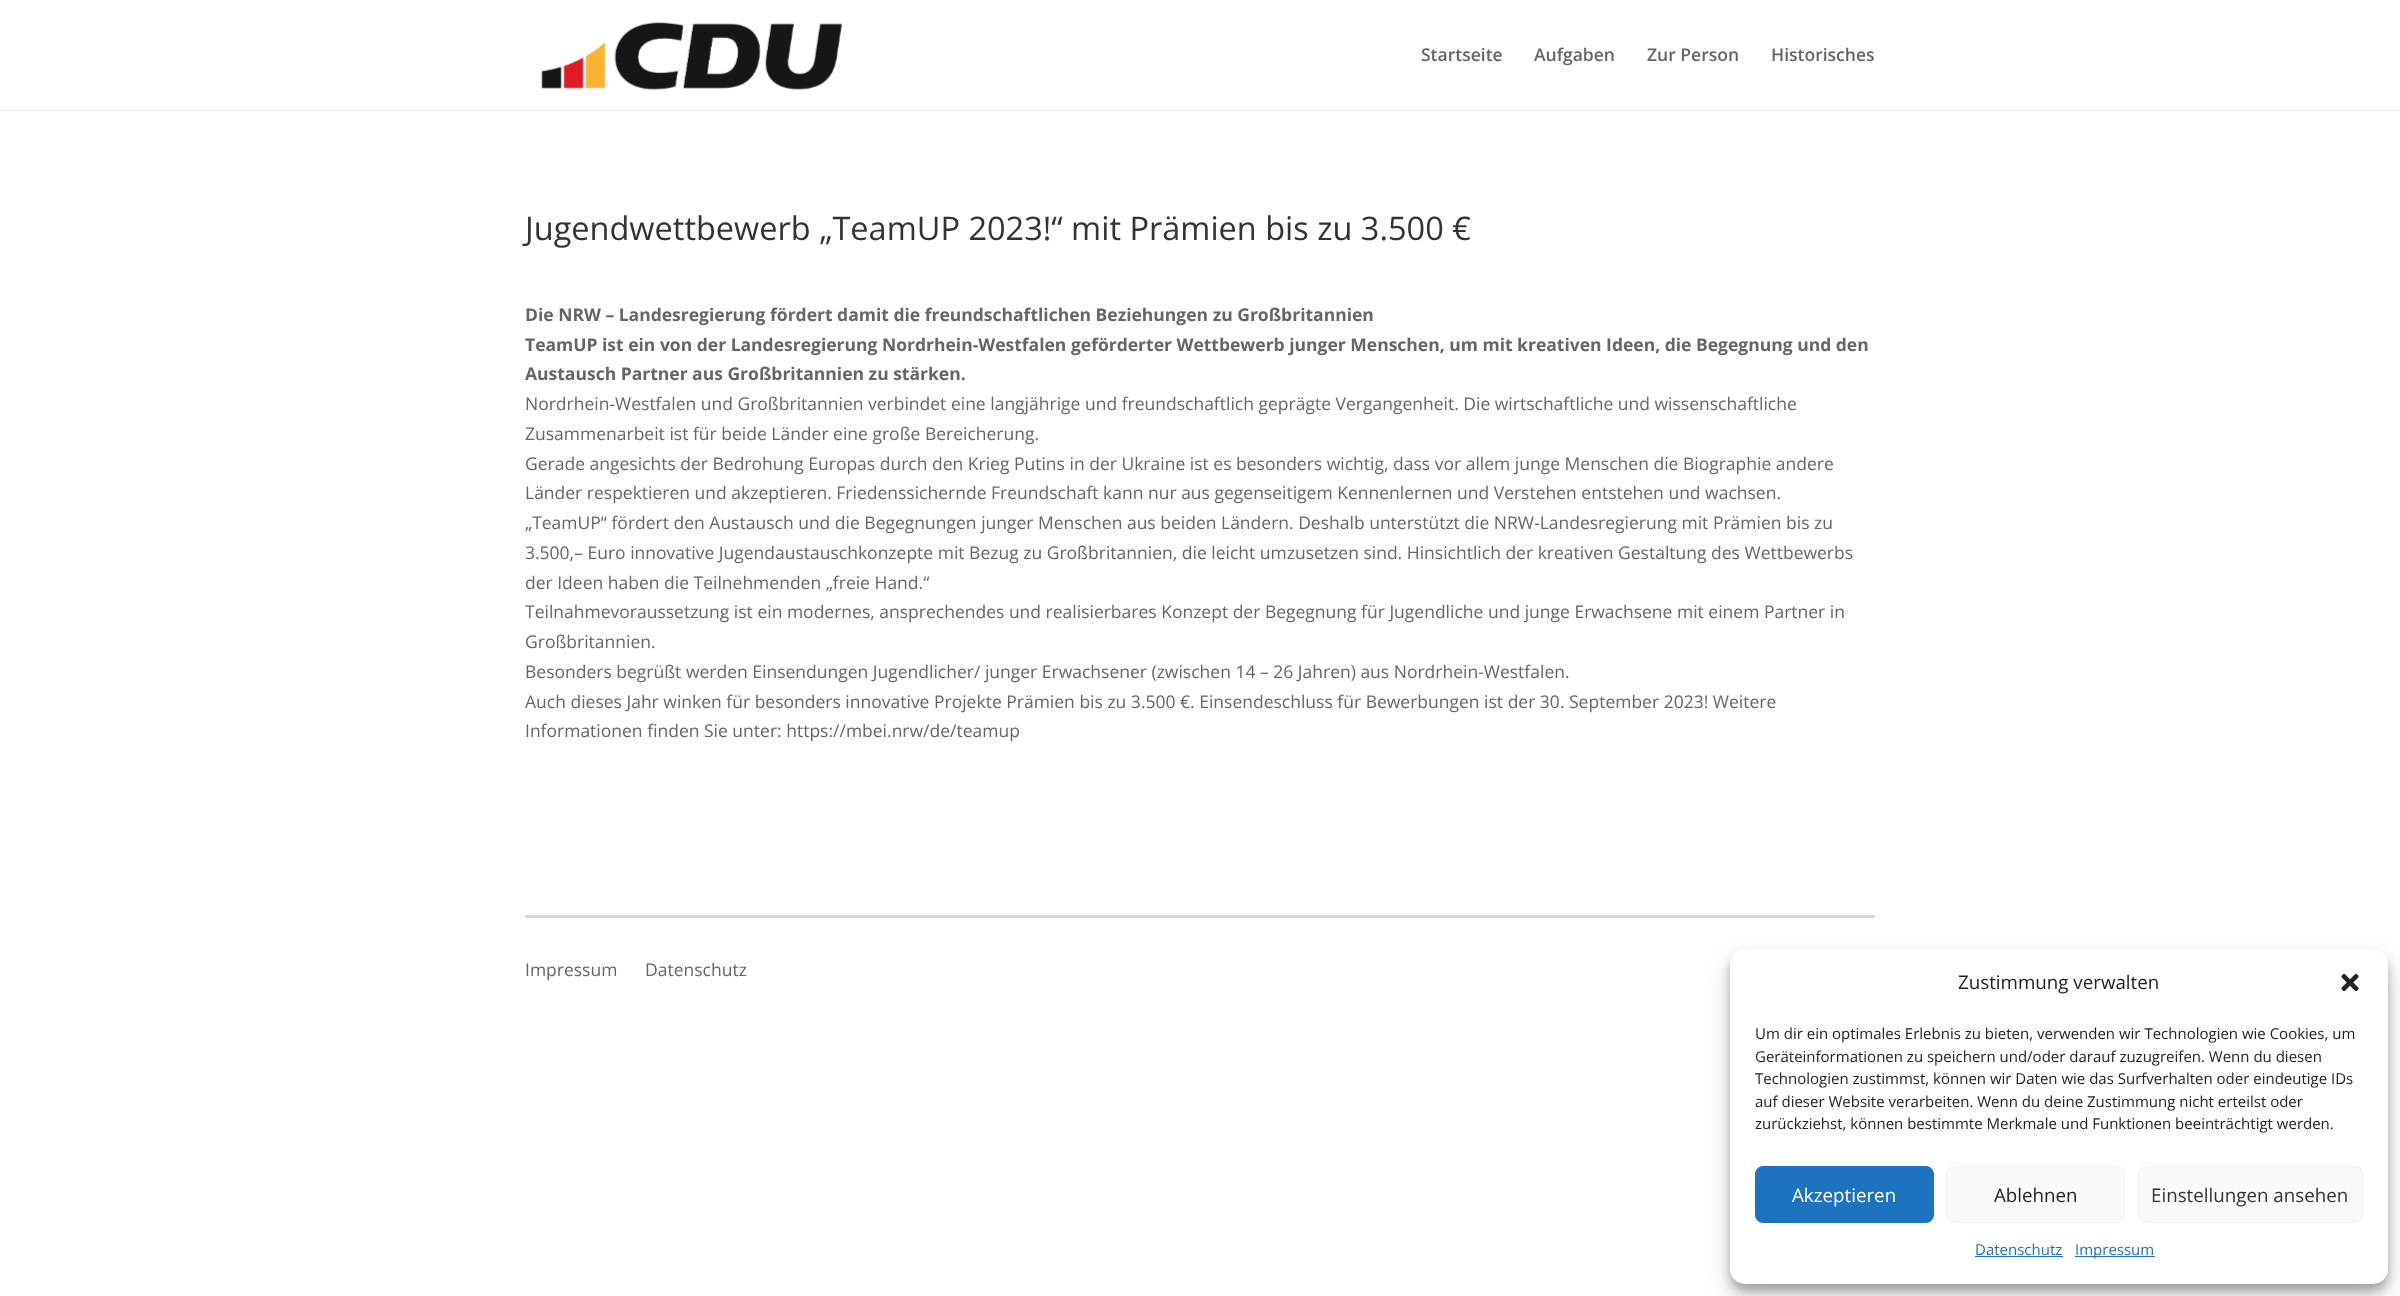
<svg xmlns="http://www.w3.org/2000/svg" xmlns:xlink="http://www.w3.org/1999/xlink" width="2400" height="1296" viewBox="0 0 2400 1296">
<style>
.cls-1{font:600 17.5px Open Sans;fill:#666666}
.cls-2{font:32.5px Open Sans;fill:#333333}
.cls-3{font:bold 17.5px Open Sans;fill:#666666}
.cls-4{font:17.5px Open Sans;fill:#666666}
.cls-5{font:18.75px Open Sans;fill:#222222}
.cls-6{font:15px Open Sans;fill:#222222}
.cls-7{font:18.75px Open Sans;fill:#ffffff}
.cls-8{font:18.75px Open Sans;fill:#333333}
.cls-9{font:15px Open Sans;fill:#1e73be}
</style>
<rect width="100%" height="100%" fill="#ffffff"/>
<rect fill="#e6e6e6" x="0" y="110" width="2400" height="1"/>
<image xlink:href="image0.png" x="541" y="22" width="302" height="68"/>
<rect fill="#dbdbdb" x="525" y="915" width="1350" height="3"/>
<rect fill="#000000" fill-opacity="0.23" filter="blur(4px)" x="1730" y="956" width="658" height="335" rx="15"/>
<rect fill="#000000" fill-opacity="0.19" filter="blur(12.5px)" x="1730" y="961" width="658" height="335" rx="15"/>
<rect fill="#ffffff" x="1730" y="949" width="658" height="335" rx="15"/>
<image xlink:href="image1.png" x="2341" y="973" width="18" height="18"/>
<rect fill="#1e73be" stroke="#1e73be" x="1755.5" y="1166.5" width="178" height="56" rx="7.5"/>
<rect fill="#f9f9f9" stroke="#f2f2f2" x="1946.5" y="1166.5" width="178" height="56" rx="7.5"/>
<rect fill="#f9f9f9" stroke="#f2f2f2" x="2138.5" y="1166.5" width="224" height="56" rx="7.5"/>
<rect fill="#1e73be" x="1975" y="1256" width="88" height="1"/>
<rect fill="#1e73be" x="2075" y="1256" width="80" height="1"/>
<text class="cls-1" x="1421" y="61">Startseite</text>
<text class="cls-1" x="1534" y="61">Aufgaben</text>
<text class="cls-1" x="1647" y="61">Zur Person</text>
<text class="cls-1" x="1771" y="61">Historisches</text>
<text class="cls-2" x="525" y="240">Jugendwettbewerb „TeamUP 2023!“ mit Prämien bis zu 3.500 €</text>
<text class="cls-3"><tspan x="525" y="321">Die NRW – Landesregierung fördert damit die freundschaftlichen Beziehungen zu Großbritannien</tspan><tspan x="525" y="351">TeamUP ist ein von der Landesregierung Nordrhein-Westfalen geförderter Wettbewerb junger Menschen, um mit kreativen Ideen, die Begegnung und den</tspan><tspan x="525" y="380">Austausch Partner aus Großbritannien zu stärken.</tspan></text>
<text class="cls-4"><tspan x="525" y="410">Nordrhein-Westfalen und Großbritannien verbindet eine langjährige und freundschaftlich geprägte Vergangenheit. Die wirtschaftliche und wissenschaftliche</tspan><tspan x="525" y="440">Zusammenarbeit ist für beide Länder eine große Bereicherung.</tspan><tspan x="525" y="470">Gerade angesichts der Bedrohung Europas durch den Krieg Putins in der Ukraine ist es besonders wichtig, dass vor allem junge Menschen die Biographie andere</tspan><tspan x="525" y="499">Länder respektieren und akzeptieren. Friedenssichernde Freundschaft kann nur aus gegenseitigem Kennenlernen und Verstehen entstehen und wachsen.</tspan><tspan x="525" y="529">„TeamUP“ fördert den Austausch und die Begegnungen junger Menschen aus beiden Ländern. Deshalb unterstützt die NRW-Landesregierung mit Prämien bis zu</tspan><tspan x="525" y="559">3.500,– Euro innovative Jugendaustauschkonzepte mit Bezug zu Großbritannien, die leicht umzusetzen sind. Hinsichtlich der kreativen Gestaltung des Wettbewerbs</tspan><tspan x="525" y="589">der Ideen haben die Teilnehmenden „freie Hand.“</tspan><tspan x="525" y="618">Teilnahmevoraussetzung ist ein modernes, ansprechendes und realisierbares Konzept der Begegnung für Jugendliche und junge Erwachsene mit einem Partner in</tspan><tspan x="525" y="648">Großbritannien.</tspan><tspan x="525" y="678">Besonders begrüßt werden Einsendungen Jugendlicher/ junger Erwachsener (zwischen 14 – 26 Jahren) aus Nordrhein-Westfalen.</tspan><tspan x="525" y="708">Auch dieses Jahr winken für besonders innovative Projekte Prämien bis zu 3.500 €. Einsendeschluss für Bewerbungen ist der 30. September 2023! Weitere</tspan><tspan x="525" y="737">Informationen finden Sie unter: https://mbei.nrw/de/teamup</tspan></text>
<text class="cls-4" x="525" y="976">Impressum</text>
<text class="cls-4" x="645" y="976">Datenschutz</text>
<text class="cls-5" x="1958" y="989">Zustimmung verwalten</text>
<text class="cls-6"><tspan x="1755" y="1039">Um dir ein optimales Erlebnis zu bieten, verwenden wir Technologien wie Cookies, um</tspan><tspan x="1755" y="1062">Geräteinformationen zu speichern und/oder darauf zuzugreifen. Wenn du diesen</tspan><tspan x="1755" y="1084">Technologien zustimmst, können wir Daten wie das Surfverhalten oder eindeutige IDs</tspan><tspan x="1755" y="1107">auf dieser Website verarbeiten. Wenn du deine Zustimmung nicht erteilst oder</tspan><tspan x="1755" y="1129">zurückziehst, können bestimmte Merkmale und Funktionen beeinträchtigt werden.</tspan></text>
<text class="cls-7" x="1792" y="1202">Akzeptieren</text>
<text class="cls-5" x="1994" y="1202">Ablehnen</text>
<text class="cls-8" x="2151" y="1202">Einstellungen ansehen</text>
<text class="cls-9" x="1975" y="1255">Datenschutz</text>
<text class="cls-9" x="2075" y="1255">Impressum</text>
</svg>
